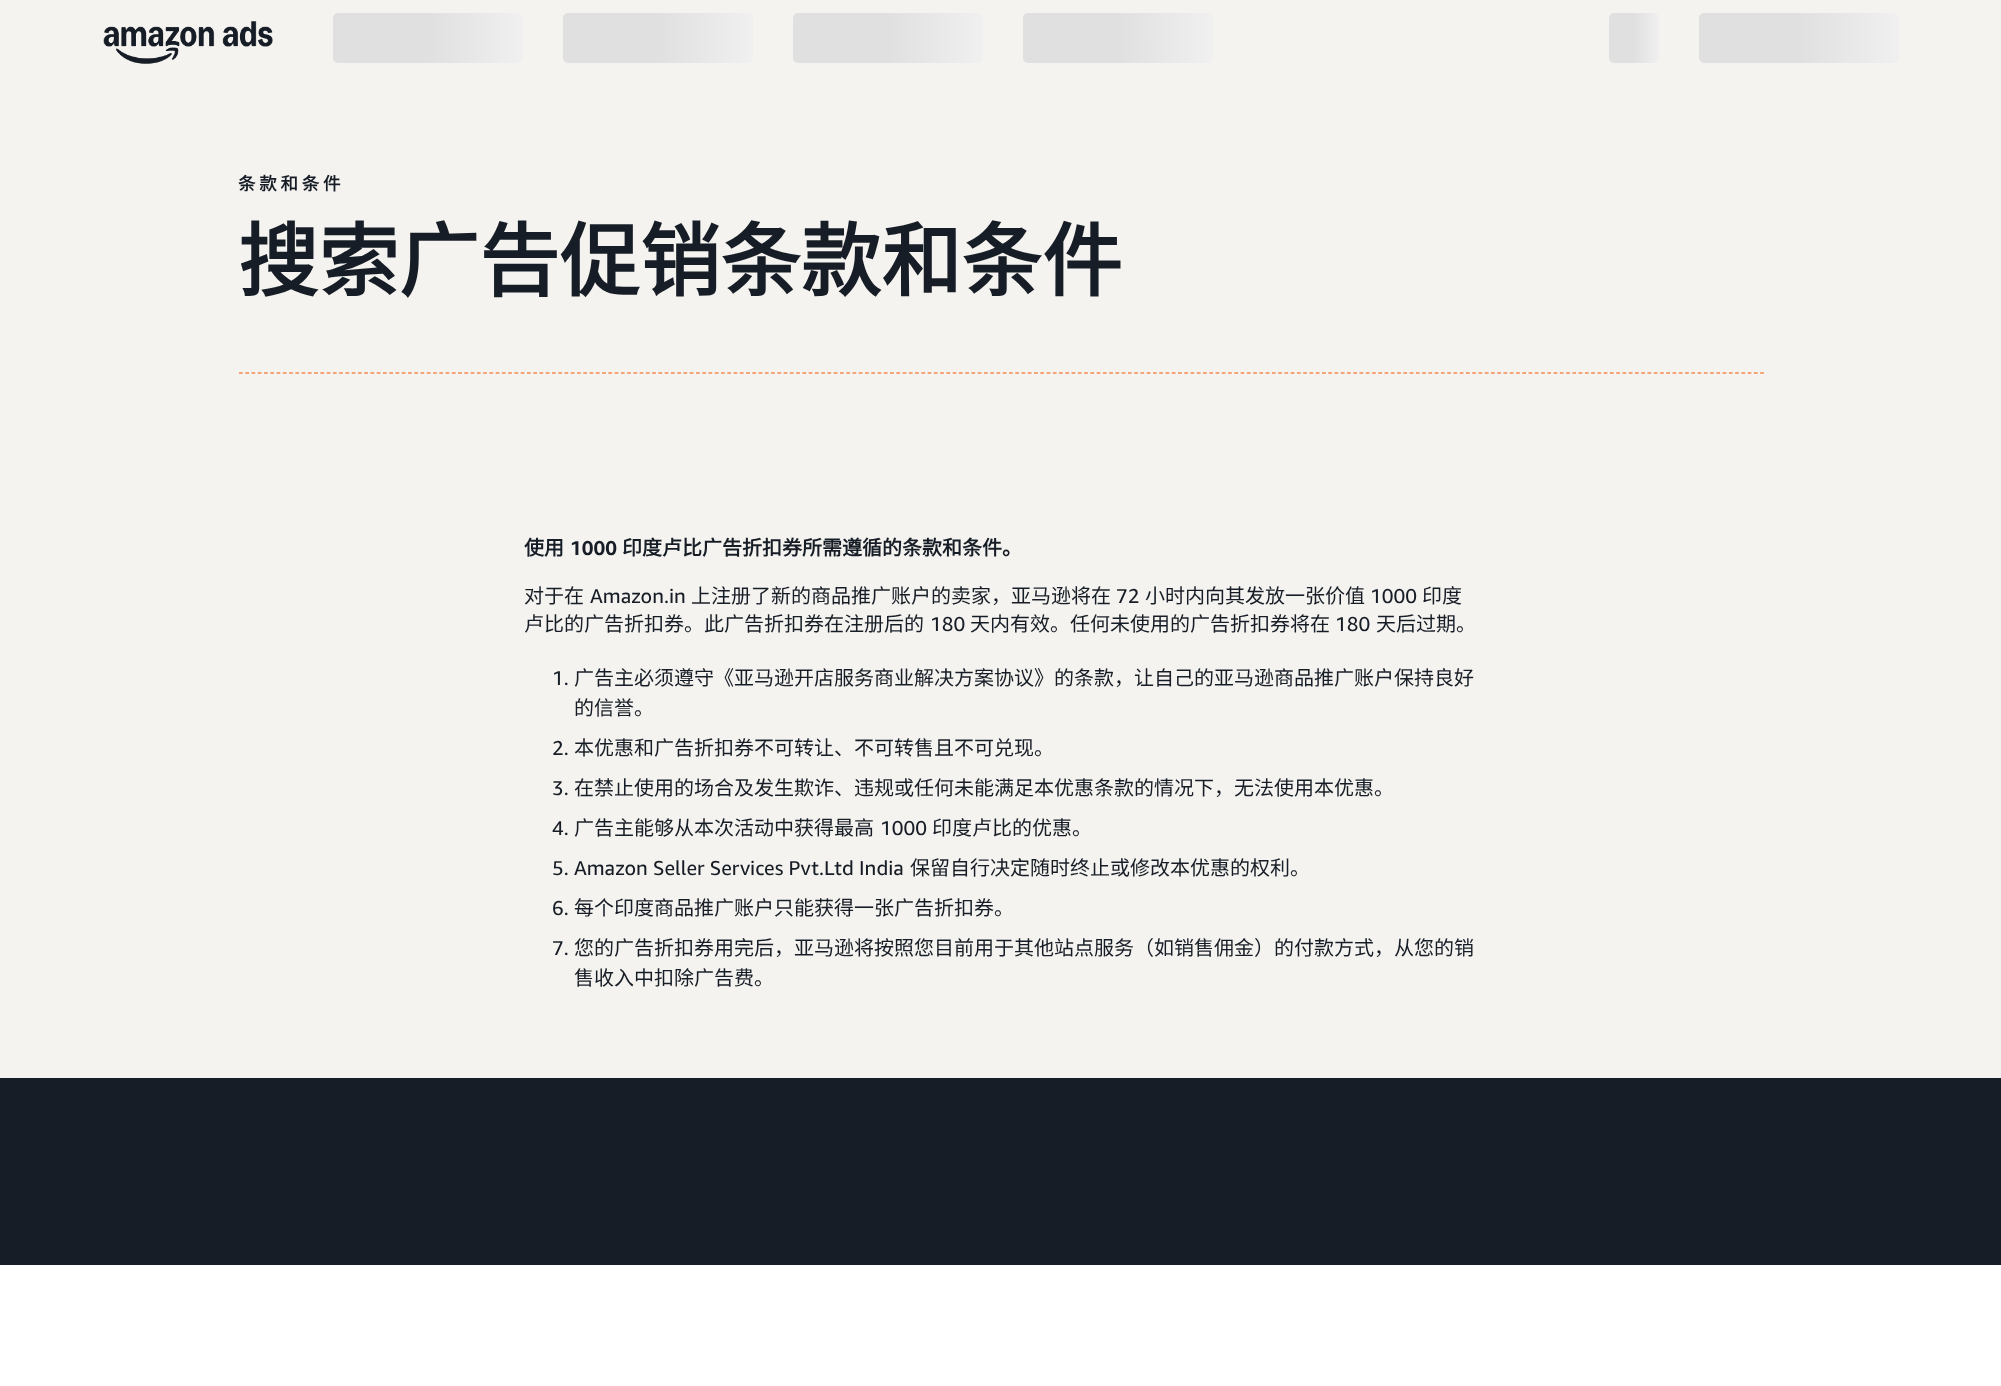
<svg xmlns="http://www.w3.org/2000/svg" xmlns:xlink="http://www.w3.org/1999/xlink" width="2001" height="1386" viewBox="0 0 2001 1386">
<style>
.cls-1{font:bold 17.5px Noto Sans CJK SC;letter-spacing:3.75px;fill:#161d26}
.cls-2{font:bold 80px Noto Sans CJK SC;letter-spacing:0.4px;fill:#161d26}
.cls-3{font:bold 20px Noto Sans CJK SC;fill:#161d26}
.cls-4{font:bold 20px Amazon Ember;fill:#161d26}
.cls-5{font:20px Noto Sans CJK SC;fill:#161d26}
.cls-6{font:20px Amazon Ember;fill:#161d26}
</style>
<defs>
<linearGradient id="g1" gradientUnits="userSpaceOnUse" x1="333" y1="38" x2="713" y2="37"><stop offset="0.25" stop-color="#e0e0e0"/><stop offset="0.5" stop-color="#f0f0f0"/><stop offset="0.75" stop-color="#e0e0e0"/></linearGradient>
<linearGradient id="g2" gradientUnits="userSpaceOnUse" x1="563" y1="38" x2="943" y2="37"><stop offset="0.25" stop-color="#e0e0e0"/><stop offset="0.5" stop-color="#f0f0f0"/><stop offset="0.75" stop-color="#e0e0e0"/></linearGradient>
<linearGradient id="g3" gradientUnits="userSpaceOnUse" x1="793" y1="38" x2="1173" y2="37"><stop offset="0.25" stop-color="#e0e0e0"/><stop offset="0.5" stop-color="#f0f0f0"/><stop offset="0.75" stop-color="#e0e0e0"/></linearGradient>
<linearGradient id="g4" gradientUnits="userSpaceOnUse" x1="1023" y1="38" x2="1403" y2="37"><stop offset="0.25" stop-color="#e0e0e0"/><stop offset="0.5" stop-color="#f0f0f0"/><stop offset="0.75" stop-color="#e0e0e0"/></linearGradient>
<linearGradient id="g5" gradientUnits="userSpaceOnUse" x1="1609" y1="38" x2="1709" y2="37"><stop offset="0.25" stop-color="#e0e0e0"/><stop offset="0.5" stop-color="#f0f0f0"/><stop offset="0.75" stop-color="#e0e0e0"/></linearGradient>
<linearGradient id="g6" gradientUnits="userSpaceOnUse" x1="1699" y1="38" x2="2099" y2="37"><stop offset="0.25" stop-color="#e0e0e0"/><stop offset="0.5" stop-color="#f0f0f0"/><stop offset="0.75" stop-color="#e0e0e0"/></linearGradient>
</defs>
<rect width="100%" height="100%" fill="#ffffff"/>
<rect fill="#f5f3ef" x="0" y="0" width="2001" height="1078"/>
<image xlink:href="image0.png" x="103" y="21" width="170" height="43"/>
<rect fill="url(#g1)" x="333" y="13" width="190" height="50" rx="5"/>
<rect fill="url(#g2)" x="563" y="13" width="190" height="50" rx="5"/>
<rect fill="url(#g3)" x="793" y="13" width="190" height="50" rx="5"/>
<rect fill="url(#g4)" x="1023" y="13" width="190" height="50" rx="5"/>
<rect fill="url(#g5)" x="1609" y="13" width="50" height="50" rx="5"/>
<rect fill="url(#g6)" x="1699" y="13" width="200" height="50" rx="5"/>
<path fill="none" stroke="#f55600" stroke-width="1.2" stroke-dasharray="3.75 2.51" d="M239 373H1764"/>
<rect fill="#161d26" x="0" y="1078" width="2001" height="187"/>
<text class="cls-1" x="238" y="190">条款和条件</text>
<text class="cls-2" x="238" y="290">搜索广告促销条款和条件</text>
<text class="cls-3" x="524" y="555">使用</text>
<text class="cls-4" x="570" y="555">1000</text>
<text class="cls-3" x="622" y="555">印度卢比广告折扣券所需遵循的条款和条件。</text>
<text class="cls-5" x="524" y="603">对于在</text>
<text class="cls-6" x="590" y="603">Amazon.in</text>
<text class="cls-5" x="691" y="603">上注册了新的商品推广账户的卖家，亚马逊将在</text>
<text class="cls-6" x="1116" y="603">72</text>
<text class="cls-5" x="1145" y="603">小时内向其发放一张价值</text>
<text class="cls-6" x="1370" y="603">1000</text>
<text class="cls-5" x="1422" y="603">印度</text>
<text class="cls-5" x="524" y="631">卢比的广告折扣券。此广告折扣券在注册后的</text>
<text class="cls-6" x="930" y="631">180</text>
<text class="cls-5" x="970" y="631">天内有效。任何未使用的广告折扣券将在</text>
<text class="cls-6" x="1335" y="631">180</text>
<text class="cls-5" x="1376" y="631">天后过期。</text>
<text class="cls-6" x="552" y="685">1.</text>
<text class="cls-5"><tspan x="574" y="685">广告主必须遵守《亚马逊开店服务商业解决方案协议》的条款，让自己的亚马逊商品推广账户保持良好</tspan><tspan x="574" y="715">的信誉。</tspan></text>
<text class="cls-6" x="552" y="755">2.</text>
<text class="cls-5" x="574" y="755">本优惠和广告折扣券不可转让、不可转售且不可兑现。</text>
<text class="cls-6" x="552" y="795">3.</text>
<text class="cls-5" x="574" y="795">在禁止使用的场合及发生欺诈、违规或任何未能满足本优惠条款的情况下，无法使用本优惠。</text>
<text class="cls-6" x="552" y="835">4.</text>
<text class="cls-5" x="574" y="835">广告主能够从本次活动中获得最高</text>
<text class="cls-6" x="880" y="835">1000</text>
<text class="cls-5" x="932" y="835">印度卢比的优惠。</text>
<text class="cls-6" x="552" y="875">5. Amazon Seller Services Pvt.Ltd India</text>
<text class="cls-5" x="910" y="875">保留自行决定随时终止或修改本优惠的权利。</text>
<text class="cls-6" x="552" y="915">6.</text>
<text class="cls-5" x="574" y="915">每个印度商品推广账户只能获得一张广告折扣券。</text>
<text class="cls-6" x="552" y="955">7.</text>
<text class="cls-5"><tspan x="574" y="955">您的广告折扣券用完后，亚马逊将按照您目前用于其他站点服务（如销售佣金）的付款方式，从您的销</tspan><tspan x="574" y="985">售收入中扣除广告费。</tspan></text>
</svg>
